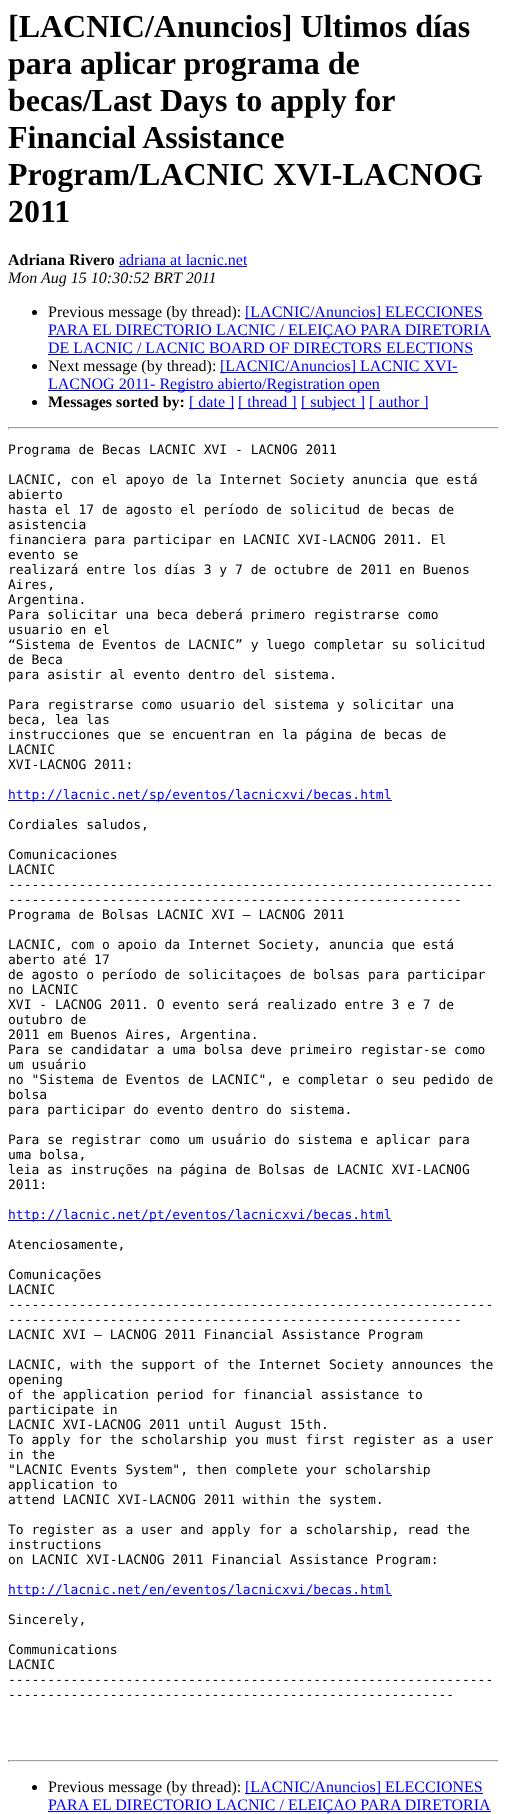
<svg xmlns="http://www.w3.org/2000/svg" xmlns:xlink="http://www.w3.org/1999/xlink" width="507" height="1814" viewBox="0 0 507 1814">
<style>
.cls-1{font:bold 32px Liberation Serif;fill:#000000}
.cls-2{font:bold 16px Liberation Serif;fill:#000000}
.cls-3{font:16px Liberation Serif;fill:#0000ee}
.cls-4{font:italic 16px Liberation Serif;fill:#000000}
.cls-5{font:16px Liberation Serif;fill:#000000}
.cls-6{font:13px DejaVu Sans Mono;fill:#000000}
.cls-7{font:13px DejaVu Sans Mono;fill:#0000ee}
</style>
<rect width="100%" height="100%" fill="#ffffff"/>
<rect fill="#0000ee" x="119" y="266" width="128" height="1"/>
<circle fill="#000000" cx="34.5" cy="312.5" r="2.5"/>
<rect fill="#0000ee" x="245" y="318" width="238" height="1"/>
<rect fill="#0000ee" x="48" y="336" width="443" height="1"/>
<rect fill="#0000ee" x="48" y="354" width="425" height="1"/>
<circle fill="#000000" cx="34.5" cy="366.5" r="2.5"/>
<rect fill="#0000ee" x="220" y="372" width="238" height="1"/>
<rect fill="#0000ee" x="48" y="390" width="332" height="1"/>
<circle fill="#000000" cx="34.5" cy="402.5" r="2.5"/>
<rect fill="#0000ee" x="189" y="408" width="45" height="1"/>
<rect fill="#0000ee" x="238" y="408" width="59" height="1"/>
<rect fill="#0000ee" x="301" y="408" width="64" height="1"/>
<rect fill="#0000ee" x="369" y="408" width="59" height="1"/>
<rect fill="#9f9f9f" x="8" y="427" width="491" height="1"/>
<rect fill="#eeeeee" x="498" y="427" width="1" height="2"/>
<rect fill="#eeeeee" x="8" y="428" width="491" height="1"/>
<rect fill="#9f9f9f" x="8" y="427" width="1" height="2"/>
<rect fill="#0000ee" x="8" y="800" width="384" height="1"/>
<rect fill="#0000ee" x="8" y="1220" width="384" height="1"/>
<rect fill="#0000ee" x="8" y="1595" width="384" height="1"/>
<rect fill="#9f9f9f" x="8" y="1760" width="491" height="1"/>
<rect fill="#eeeeee" x="498" y="1760" width="1" height="2"/>
<rect fill="#eeeeee" x="8" y="1761" width="491" height="1"/>
<rect fill="#9f9f9f" x="8" y="1760" width="1" height="2"/>
<circle fill="#000000" cx="34.5" cy="1787.5" r="2.5"/>
<rect fill="#0000ee" x="245" y="1793" width="238" height="1"/>
<rect fill="#0000ee" x="48" y="1811" width="443" height="1"/>
<text class="cls-1"><tspan x="8" y="37">[LACNIC/Anuncios] Ultimos días</tspan><tspan x="8" y="74">para aplicar programa de</tspan><tspan x="8" y="111">becas/Last Days to apply for</tspan><tspan x="8" y="148">Financial Assistance</tspan><tspan x="8" y="185">Program/LACNIC XVI-LACNOG</tspan><tspan x="8" y="222">2011</tspan></text>
<text class="cls-2" x="8" y="265">Adriana Rivero</text>
<text class="cls-3" x="119" y="265">adriana at lacnic.net</text>
<text class="cls-4" x="8" y="283">Mon Aug 15 10:30:52 BRT 2011</text>
<text class="cls-5" x="48" y="317">Previous message (by thread):</text>
<text class="cls-3" x="245" y="317">[LACNIC/Anuncios] ELECCIONES</text>
<text class="cls-3"><tspan x="48" y="335">PARA EL DIRECTORIO LACNIC / ELEIÇAO PARA DIRETORIA</tspan><tspan x="48" y="353">DE LACNIC / LACNIC BOARD OF DIRECTORS ELECTIONS</tspan></text>
<text class="cls-5" x="48" y="371">Next message (by thread):</text>
<text class="cls-3" x="220" y="371">[LACNIC/Anuncios] LACNIC XVI-</text>
<text class="cls-3" x="48" y="389">LACNOG 2011- Registro abierto/Registration open</text>
<text class="cls-2" x="48" y="407">Messages sorted by:</text>
<text class="cls-3" x="189" y="407">[ date ]</text>
<text class="cls-3" x="238" y="407">[ thread ]</text>
<text class="cls-3" x="301" y="407">[ subject ]</text>
<text class="cls-3" x="369" y="407">[ author ]</text>
<text class="cls-6" x="8" y="454">Programa de Becas LACNIC XVI - LACNOG 2011</text>
<text class="cls-6"><tspan x="8" y="484">LACNIC, con el apoyo de la Internet Society anuncia que está</tspan><tspan x="8" y="499">abierto</tspan><tspan x="8" y="514">hasta el 17 de agosto el período de solicitud de becas de</tspan><tspan x="8" y="529">asistencia</tspan><tspan x="8" y="544">financiera para participar en LACNIC XVI-LACNOG 2011. El</tspan><tspan x="8" y="559">evento se</tspan><tspan x="8" y="574">realizará entre los días 3 y 7 de octubre de 2011 en Buenos</tspan><tspan x="8" y="589">Aires,</tspan><tspan x="8" y="604">Argentina.</tspan><tspan x="8" y="619">Para solicitar una beca deberá primero registrarse como</tspan><tspan x="8" y="634">usuario en el</tspan><tspan x="8" y="649">“Sistema de Eventos de LACNIC” y luego completar su solicitud</tspan><tspan x="8" y="664">de Beca</tspan><tspan x="8" y="679">para asistir al evento dentro del sistema.</tspan></text>
<text class="cls-6"><tspan x="8" y="709">Para registrarse como usuario del sistema y solicitar una</tspan><tspan x="8" y="724">beca, lea las</tspan><tspan x="8" y="739">instrucciones que se encuentran en la página de becas de</tspan><tspan x="8" y="754">LACNIC</tspan><tspan x="8" y="769">XVI-LACNOG 2011:</tspan></text>
<text class="cls-7" x="8" y="799">http://lacnic.net/sp/eventos/lacnicxvi/becas.html</text>
<text class="cls-6" x="8" y="829">Cordiales saludos,</text>
<text class="cls-6"><tspan x="8" y="859">Comunicaciones</tspan><tspan x="8" y="874">LACNIC</tspan><tspan x="8" y="889">--------------------------------------------------------------</tspan><tspan x="8" y="904">----------------------------------------------------------</tspan><tspan x="8" y="919">Programa de Bolsas LACNIC XVI – LACNOG 2011</tspan></text>
<text class="cls-6"><tspan x="8" y="949">LACNIC, com o apoio da Internet Society, anuncia que está</tspan><tspan x="8" y="964">aberto até 17</tspan><tspan x="8" y="979">de agosto o período de solicitaçoes de bolsas para participar</tspan><tspan x="8" y="994">no LACNIC</tspan><tspan x="8" y="1009">XVI - LACNOG 2011. O evento será realizado entre 3 e 7 de</tspan><tspan x="8" y="1024">outubro de</tspan><tspan x="8" y="1039">2011 em Buenos Aires, Argentina.</tspan><tspan x="8" y="1054">Para se candidatar a uma bolsa deve primeiro registar-se como</tspan><tspan x="8" y="1069">um usuário</tspan><tspan x="8" y="1084">no "Sistema de Eventos de LACNIC", e completar o seu pedido de</tspan><tspan x="8" y="1099">bolsa</tspan><tspan x="8" y="1114">para participar do evento dentro do sistema.</tspan></text>
<text class="cls-6"><tspan x="8" y="1144">Para se registrar como um usuário do sistema e aplicar para</tspan><tspan x="8" y="1159">uma bolsa,</tspan><tspan x="8" y="1174">leia as instruções na página de Bolsas de LACNIC XVI-LACNOG</tspan><tspan x="8" y="1189">2011:</tspan></text>
<text class="cls-7" x="8" y="1219">http://lacnic.net/pt/eventos/lacnicxvi/becas.html</text>
<text class="cls-6" x="8" y="1249">Atenciosamente,</text>
<text class="cls-6"><tspan x="8" y="1279">Comunicações</tspan><tspan x="8" y="1294">LACNIC</tspan><tspan x="8" y="1309">--------------------------------------------------------------</tspan><tspan x="8" y="1324">----------------------------------------------------------</tspan><tspan x="8" y="1339">LACNIC XVI – LACNOG 2011 Financial Assistance Program</tspan></text>
<text class="cls-6"><tspan x="8" y="1369">LACNIC, with the support of the Internet Society announces the</tspan><tspan x="8" y="1384">opening</tspan><tspan x="8" y="1399">of the application period for financial assistance to</tspan><tspan x="8" y="1414">participate in</tspan><tspan x="8" y="1429">LACNIC XVI-LACNOG 2011 until August 15th.</tspan><tspan x="8" y="1444">To apply for the scholarship you must first register as a user</tspan><tspan x="8" y="1459">in the</tspan><tspan x="8" y="1474">"LACNIC Events System", then complete your scholarship</tspan><tspan x="8" y="1489">application to</tspan><tspan x="8" y="1504">attend LACNIC XVI-LACNOG 2011 within the system.</tspan></text>
<text class="cls-6"><tspan x="8" y="1534">To register as a user and apply for a scholarship, read the</tspan><tspan x="8" y="1549">instructions</tspan><tspan x="8" y="1564">on LACNIC XVI-LACNOG 2011 Financial Assistance Program:</tspan></text>
<text class="cls-7" x="8" y="1594">http://lacnic.net/en/eventos/lacnicxvi/becas.html</text>
<text class="cls-6" x="8" y="1624">Sincerely,</text>
<text class="cls-6"><tspan x="8" y="1654">Communications</tspan><tspan x="8" y="1669">LACNIC</tspan><tspan x="8" y="1684">--------------------------------------------------------------</tspan><tspan x="8" y="1699">---------------------------------------------------------</tspan></text>
<text class="cls-5" x="48" y="1792">Previous message (by thread):</text>
<text class="cls-3" x="245" y="1792">[LACNIC/Anuncios] ELECCIONES</text>
<text class="cls-3" x="48" y="1810">PARA EL DIRECTORIO LACNIC / ELEIÇAO PARA DIRETORIA</text>
</svg>
